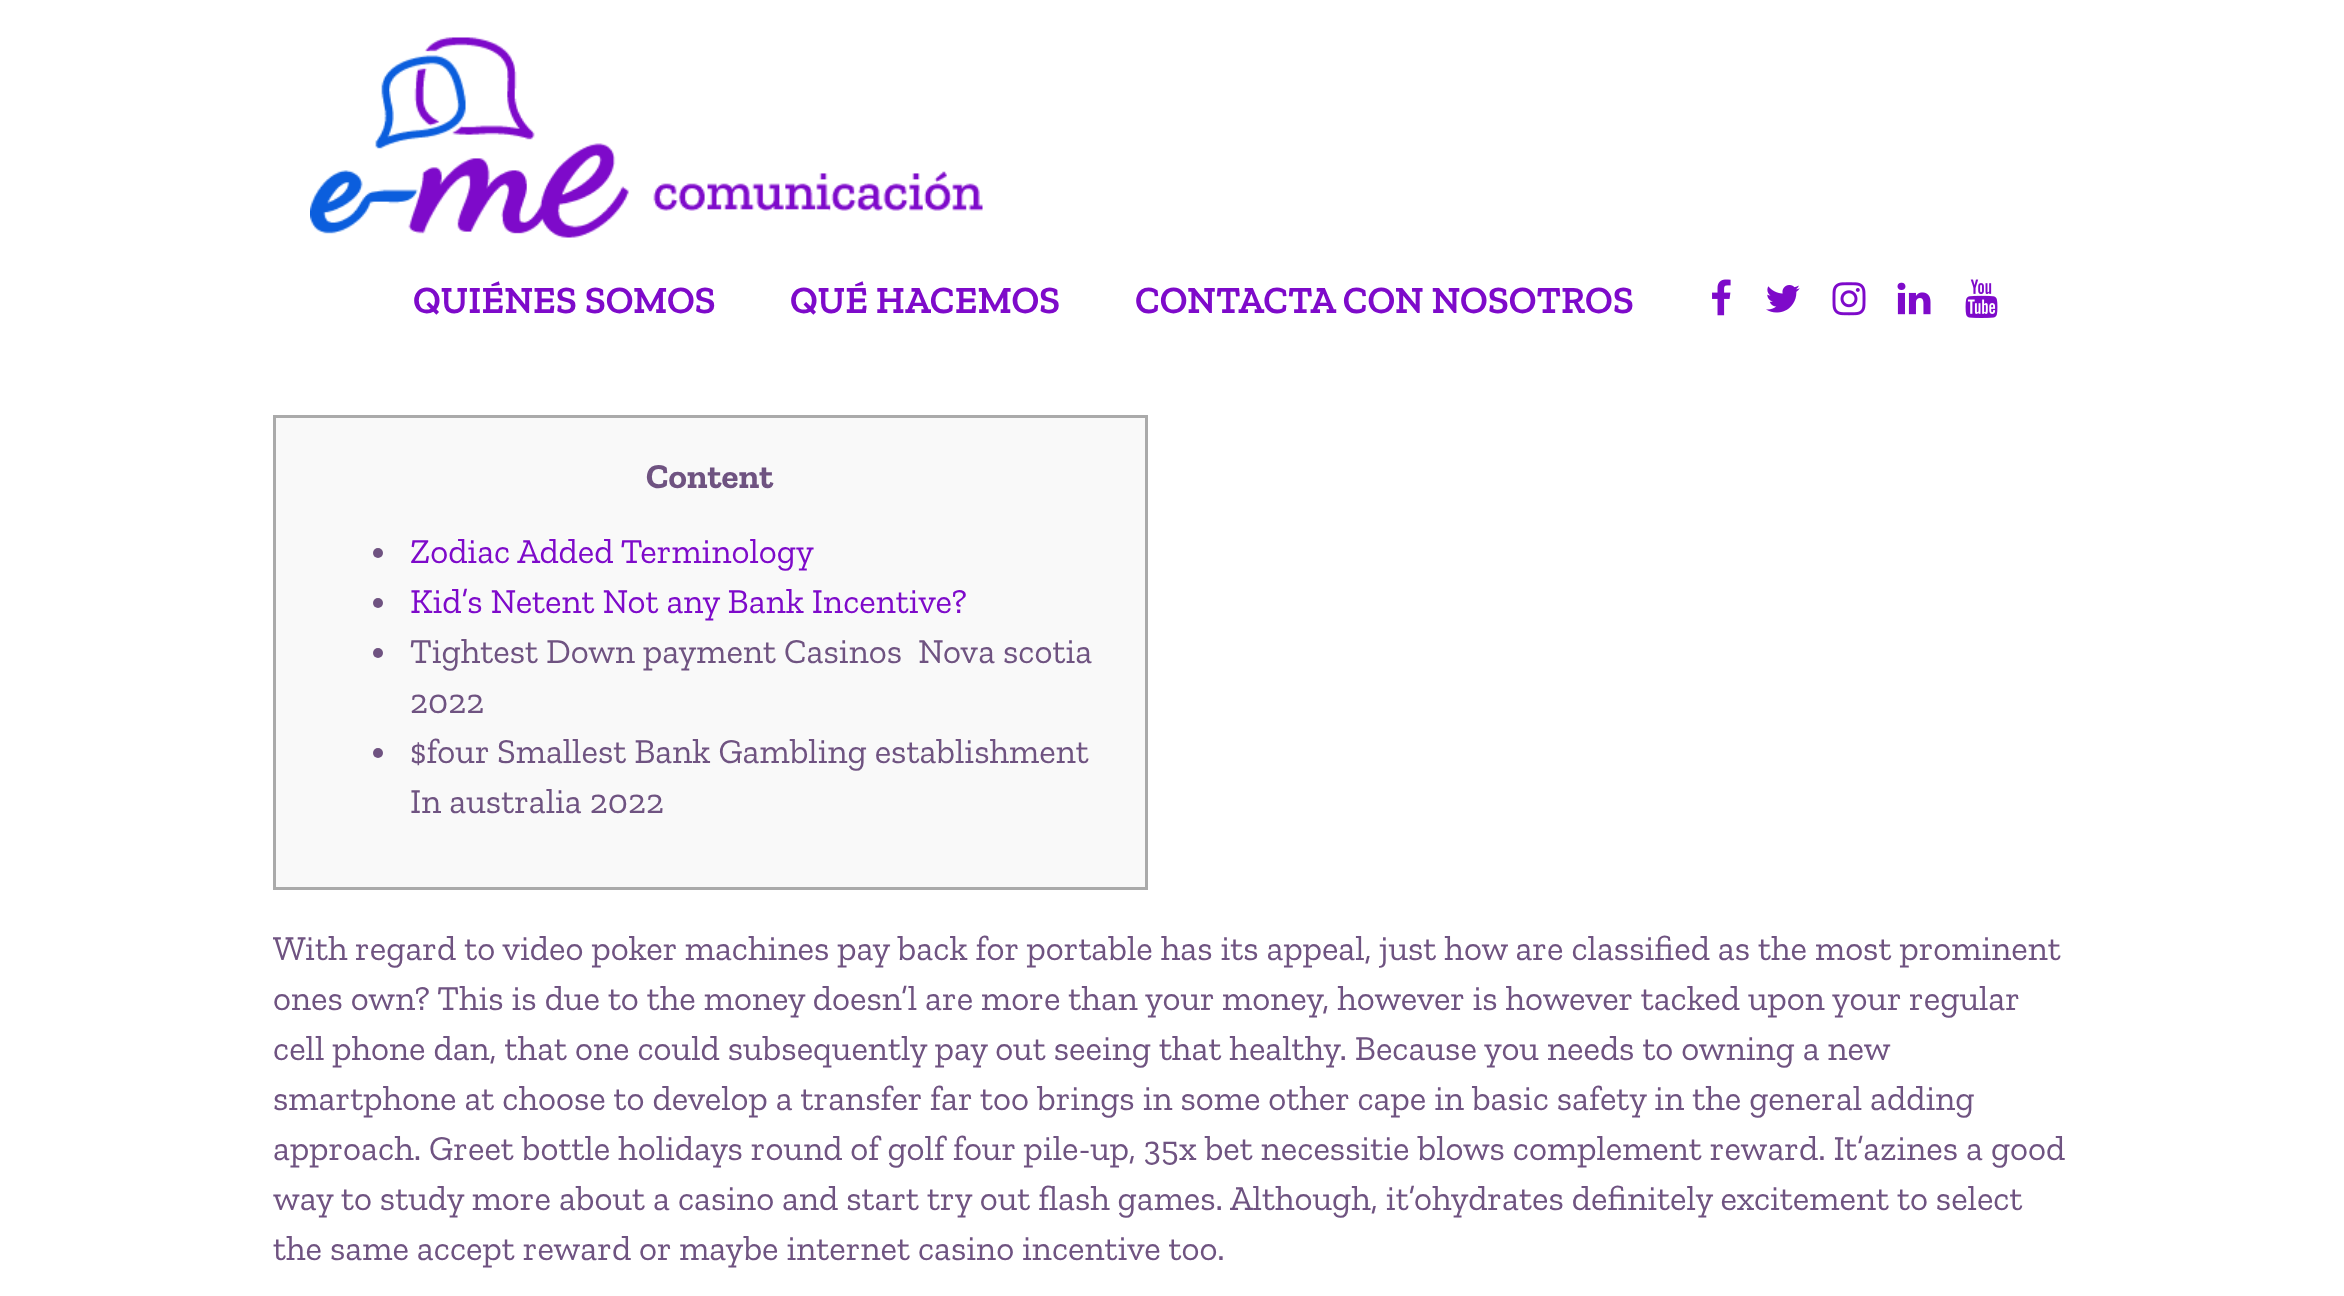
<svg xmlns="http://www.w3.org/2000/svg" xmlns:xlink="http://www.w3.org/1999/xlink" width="2344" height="1296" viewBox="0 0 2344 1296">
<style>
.cls-1{font:600 38.5px Zilla Slab;fill:#7e0aca}
.cls-2{font:bold 35px Zilla Slab;fill:#6f5381}
.cls-3{font:35px Zilla Slab;fill:#7e0aca}
.cls-4{font:35px Zilla Slab;fill:#6f5381}
</style>
<rect width="100%" height="100%" fill="#ffffff"/>
<image xlink:href="image0.png" x="310" y="37" width="673" height="201"/>
<image xlink:href="image1.png" x="1712" y="279" width="19" height="37"/>
<image xlink:href="image2.png" x="1766" y="285" width="34" height="28"/>
<image xlink:href="image3.png" x="1832" y="282" width="34" height="34"/>
<image xlink:href="image4.png" x="1897" y="282" width="34" height="33"/>
<image xlink:href="image5.png" x="1965" y="279" width="33" height="39"/>
<rect fill="#f9f9f9" stroke="#aaaaaa" stroke-width="3" x="274.5" y="416.5" width="872" height="472"/>
<circle fill="#6f5381" cx="378" cy="553" r="5"/>
<circle fill="#6f5381" cx="378" cy="603" r="5"/>
<circle fill="#6f5381" cx="378" cy="653" r="5"/>
<circle fill="#6f5381" cx="378" cy="753" r="5"/>
<text class="cls-1" x="413" y="313">QUIÉNES SOMOS</text>
<text class="cls-1" x="790" y="313">QUÉ HACEMOS</text>
<text class="cls-1" x="1135" y="313">CONTACTA CON NOSOTROS</text>
<text class="cls-2" x="646" y="488">Content</text>
<text class="cls-3"><tspan x="410" y="563">Zodiac Added Terminology</tspan><tspan x="410" y="613">Kid’s Netent Not any Bank Incentive?</tspan></text>
<text class="cls-4"><tspan x="410" y="663">Tightest Down payment Casinos ️ Nova scotia</tspan><tspan x="410" y="713">2022</tspan><tspan x="410" y="763">$four Smallest Bank Gambling establishment</tspan><tspan x="410" y="813">In australia 2022</tspan></text>
<text class="cls-4"><tspan x="273" y="960">With regard to video poker machines pay back for portable has its appeal, just how are classified as the most prominent</tspan><tspan x="273" y="1010">ones own? This is due to the money doesn’l are more than your money, however is however tacked upon your regular</tspan><tspan x="273" y="1060">cell phone dan, that one could subsequently pay out seeing that healthy. Because you needs to owning a new</tspan><tspan x="273" y="1110">smartphone at choose to develop a transfer far too brings in some other cape in basic safety in the general adding</tspan><tspan x="273" y="1160">approach. Greet bottle holidays round of golf four pile-up, 35x bet necessitie blows complement reward. It’azines a good</tspan><tspan x="273" y="1210">way to study more about a casino and start try out flash games. Although, it’ohydrates definitely excitement to select</tspan><tspan x="273" y="1260">the same accept reward or maybe internet casino incentive too.</tspan></text>
</svg>
